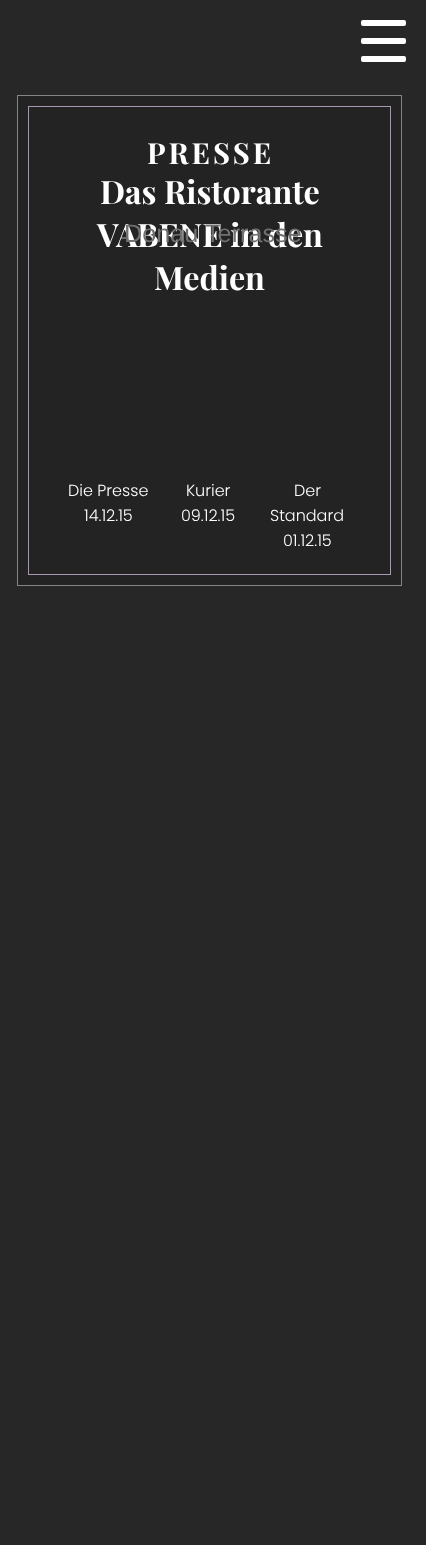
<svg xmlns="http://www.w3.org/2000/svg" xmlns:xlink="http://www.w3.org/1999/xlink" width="426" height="1545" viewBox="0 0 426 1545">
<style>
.cls-1{font:bold 29px Playfair Display;letter-spacing:3px;fill:#ffffff}
.cls-2{font:bold 32.25px Playfair Display;fill:#ffffff}
.cls-3{font:300 16px Poppins;fill:#ffffff}
.cls-4{font:25.25px Liberation Sans;fill:#707070}
</style>
<rect width="100%" height="100%" fill="#272727"/>
<rect fill="#ffffff" x="361" y="20" width="45" height="6" rx="2"/>
<rect fill="#ffffff" x="361" y="38" width="45" height="6" rx="2"/>
<rect fill="#ffffff" x="361" y="56" width="45" height="6" rx="2"/>
<rect fill="#232323" stroke="#868585" x="17.5" y="95.5" width="384" height="490"/>
<rect fill="none" stroke="#a996b3" x="28.5" y="106.5" width="362" height="468"/>
<text class="cls-1" x="147" y="164">PRESSE</text>
<text class="cls-2" x="100" y="204">Das Ristorante</text>
<text class="cls-2" x="97" y="247">VABENE in den</text>
<text class="cls-2" x="154" y="290">Medien</text>
<text class="cls-3" x="68" y="496">Die Presse</text>
<text class="cls-3" x="84" y="521">14.12.15</text>
<text class="cls-3" x="186" y="496">Kurier</text>
<text class="cls-3" x="181" y="521">09.12.15</text>
<text class="cls-3" x="294" y="496">Der</text>
<text class="cls-3" x="270" y="521">Standard</text>
<text class="cls-3" x="283" y="546">01.12.15</text>
<text class="cls-4" x="124" y="242">Donau Terrasse</text>
</svg>
